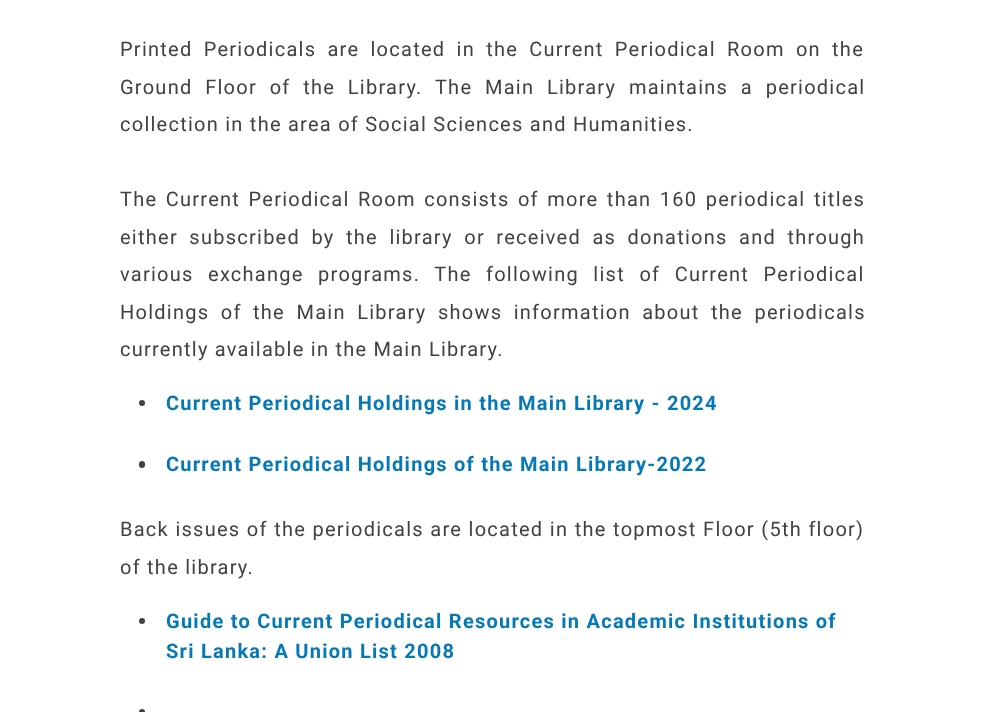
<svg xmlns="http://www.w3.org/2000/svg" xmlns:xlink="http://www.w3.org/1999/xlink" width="985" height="712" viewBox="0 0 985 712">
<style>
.cls-1{font:20px Roboto;letter-spacing:1.25px;fill:#414141}
.cls-2{font:bold 20px Roboto;letter-spacing:1.25px;fill:#0579b8}
</style>
<rect width="100%" height="100%" fill="#ffffff"/>
<circle fill="#414141" cx="142" cy="403" r="3"/>
<rect fill="#414141" x="139" y="461" width="6" height="7" rx="3"/>
<circle fill="#414141" cx="142" cy="621" r="3"/>
<circle fill="#414141" cx="142" cy="712" r="3"/>
<text class="cls-1"><tspan x="120" y="56" word-spacing="5">Printed Periodicals are located in the Current Periodical Room on the</tspan><tspan x="120" y="94" word-spacing="6.5">Ground Floor of the Library. The Main Library maintains a periodical</tspan><tspan x="120" y="131">collection in the area of Social Sciences and Humanities.</tspan></text>
<text class="cls-1"><tspan x="120" y="206" word-spacing="2.25">The Current Periodical Room consists of more than 160 periodical titles</tspan><tspan x="120" y="244" word-spacing="5.25">either subscribed by the library or received as donations and through</tspan><tspan x="120" y="281" word-spacing="8.25">various exchange programs. The following list of Current Periodical</tspan><tspan x="120" y="319" word-spacing="5.25">Holdings of the Main Library shows information about the periodicals</tspan><tspan x="120" y="356">currently available in the Main Library.</tspan></text>
<text class="cls-2" x="166" y="410">Current Periodical Holdings in the Main Library - 2024</text>
<text class="cls-2" x="166" y="471">Current Periodical Holdings of the Main Library-2022</text>
<text class="cls-1"><tspan x="120" y="536" word-spacing="0.25">Back issues of the periodicals are located in the topmost Floor (5th floor)</tspan><tspan x="120" y="574">of the library.</tspan></text>
<text class="cls-2"><tspan x="166" y="628">Guide to Current Periodical Resources in Academic Institutions of</tspan><tspan x="166" y="658">Sri Lanka: A Union List 2008</tspan></text>
</svg>
